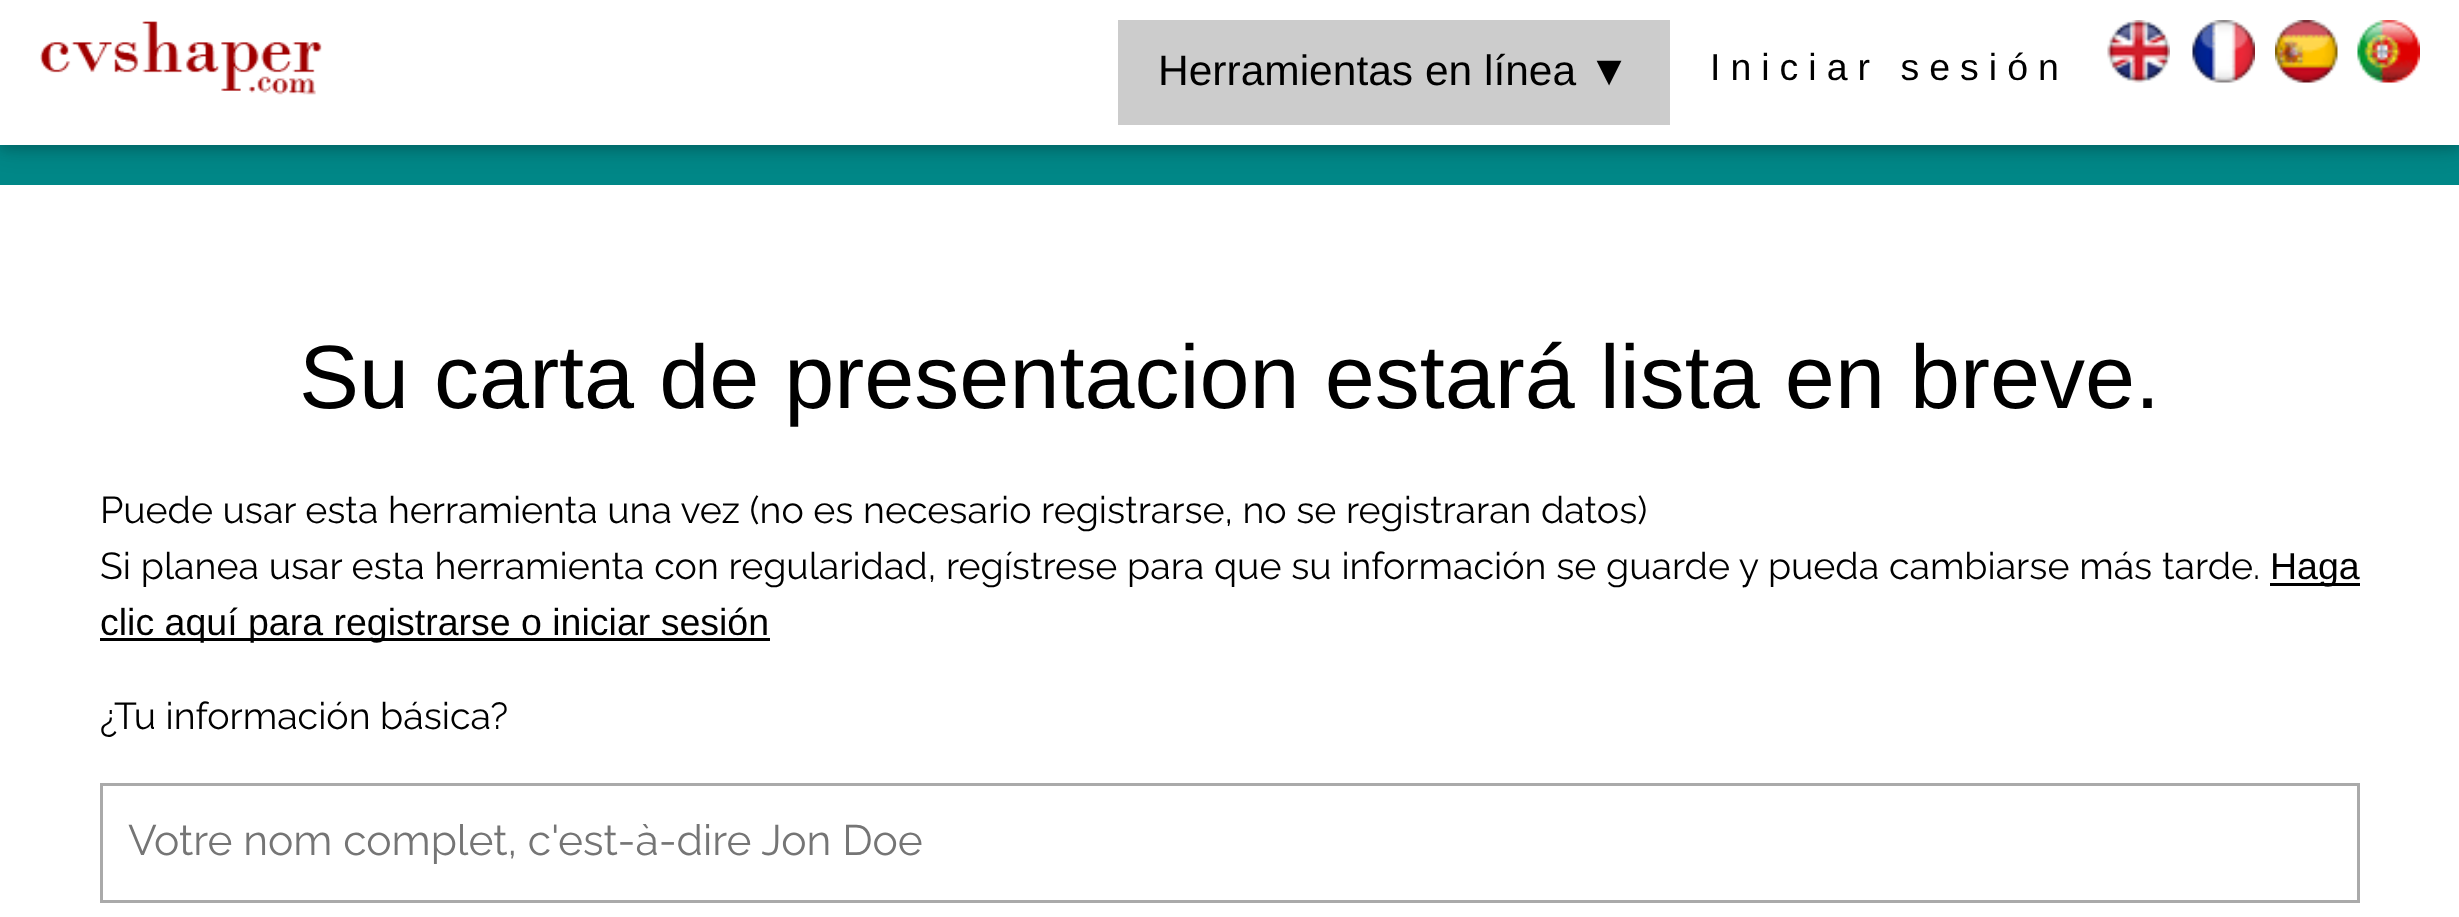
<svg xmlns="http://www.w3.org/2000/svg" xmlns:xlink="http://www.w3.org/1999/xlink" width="2459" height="917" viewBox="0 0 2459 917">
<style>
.cls-1{font:42.5px Liberation Sans;fill:#000000}
.cls-2{font:37.5px Liberation Sans;letter-spacing:10px;fill:#000000}
.cls-3{font:90px Liberation Sans;fill:#000000}
.cls-4{font:37.5px Raleway;fill:#000000}
.cls-5{font:37.5px Liberation Sans;fill:#000000}
.cls-6{font:42.5px Raleway;fill:#757575}
</style>
<rect width="100%" height="100%" fill="#008787"/>
<rect fill="#ffffff" x="0" y="185" width="2459" height="732"/>
<rect fill="#000000" fill-opacity="0.12" filter="blur(12.5px)" x="0" y="5" width="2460" height="145"/>
<rect fill="#000000" fill-opacity="0.16" filter="blur(6px)" x="0" y="5" width="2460" height="145"/>
<rect fill="#ffffff" x="0" y="0" width="2459" height="145"/>
<image xlink:href="image0.png" x="40" y="21" width="282" height="74"/>
<rect fill="#cccccc" x="1118" y="20" width="552" height="105"/>
<image xlink:href="image1.png" x="2107" y="20" width="63" height="63"/>
<image xlink:href="image2.png" x="2192" y="20" width="63" height="63"/>
<image xlink:href="image3.png" x="2275" y="20" width="63" height="63"/>
<image xlink:href="image4.png" x="2357" y="20" width="63" height="63"/>
<rect fill="#000000" x="2270" y="583" width="90" height="3"/>
<rect fill="#000000" x="100" y="638" width="670" height="3"/>
<rect fill="none" stroke="#aaaaaa" stroke-width="3" x="101.5" y="784.5" width="2257" height="117"/>
<text class="cls-1" x="1158" y="85">Herramientas en línea ▼</text>
<text class="cls-2" x="1710" y="80">Iniciar sesión</text>
<text class="cls-3" x="299" y="408">Su carta de presentacion estará lista en breve.</text>
<text class="cls-4"><tspan x="100" y="523">Puede usar esta herramienta una vez (no es necesario registrarse, no se registraran datos)</tspan><tspan x="100" y="579" word-spacing="0.25">Si planea usar esta herramienta con regularidad, regístrese para que su información se guarde y pueda cambiarse más tarde.</tspan></text>
<text class="cls-5" x="2270" y="579">Haga</text>
<text class="cls-5" x="100" y="635">clic aquí para registrarse o iniciar sesión</text>
<text class="cls-4" x="100" y="729">¿Tu información básica?</text>
<text class="cls-6" x="128" y="855">Votre nom complet, c'est-à-dire Jon Doe</text>
</svg>
